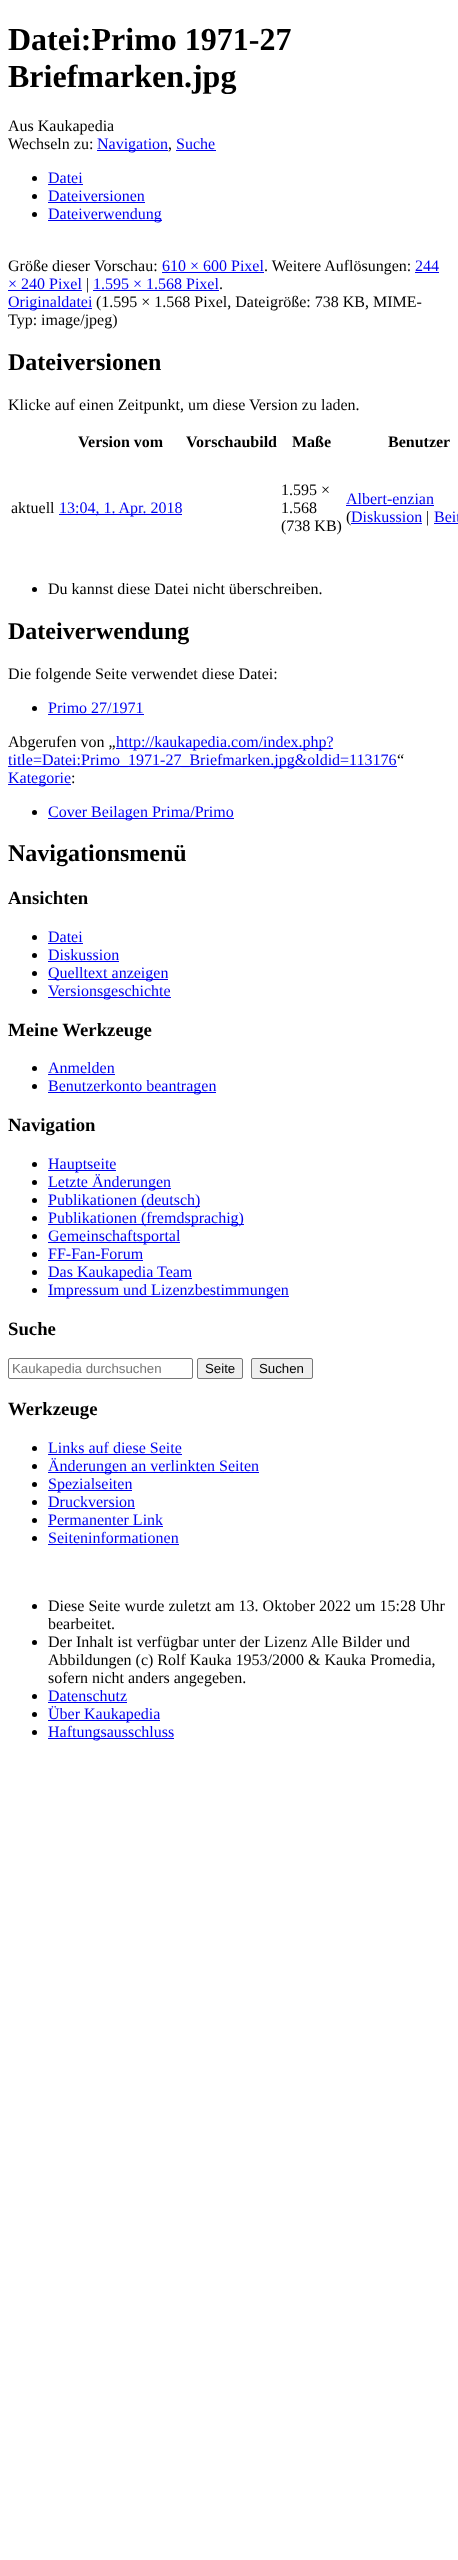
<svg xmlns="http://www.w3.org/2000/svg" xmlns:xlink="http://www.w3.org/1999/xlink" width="458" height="2560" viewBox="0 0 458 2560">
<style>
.cls-1{font:bold 32px Liberation Serif;fill:#000000}
.cls-2{font:16px Liberation Serif;fill:#000000}
.cls-3{font:16px Liberation Serif;fill:#0000ee}
.cls-4{font:bold 24px Liberation Serif;fill:#000000}
.cls-5{font:bold 16px Liberation Serif;fill:#000000}
.cls-6{font:bold 18.75px Liberation Serif;fill:#000000}
.cls-7{font:13.25px Liberation Sans;fill:#757575}
.cls-8{font:13.25px Liberation Sans;fill:#000000}
</style>
<rect width="100%" height="100%" fill="#ffffff"/>
<rect fill="#0000ee" x="97" y="150" width="71" height="1"/>
<rect fill="#0000ee" x="176" y="150" width="40" height="1"/>
<circle fill="#000000" cx="34.5" cy="178.5" r="2.5"/>
<rect fill="#0000ee" x="48" y="184" width="35" height="1"/>
<circle fill="#000000" cx="34.5" cy="196.5" r="2.5"/>
<rect fill="#0000ee" x="48" y="202" width="97" height="1"/>
<circle fill="#000000" cx="34.5" cy="214.5" r="2.5"/>
<rect fill="#0000ee" x="48" y="220" width="114" height="1"/>
<rect fill="#0000ee" x="162" y="272" width="102" height="1"/>
<rect fill="#0000ee" x="415" y="272" width="24" height="1"/>
<rect fill="#0000ee" x="8" y="290" width="74" height="1"/>
<rect fill="#0000ee" x="93" y="290" width="126" height="1"/>
<rect fill="#0000ee" x="8" y="308" width="84" height="1"/>
<rect fill="#0000ee" x="59" y="514" width="123" height="1"/>
<rect fill="#0000ee" x="346" y="505" width="88" height="1"/>
<rect fill="#0000ee" x="351" y="523" width="71" height="1"/>
<rect fill="#0000ee" x="434" y="523" width="24" height="1"/>
<circle fill="#000000" cx="34.5" cy="589.5" r="2.5"/>
<circle fill="#000000" cx="34.5" cy="708.5" r="2.5"/>
<rect fill="#0000ee" x="48" y="714" width="96" height="1"/>
<rect fill="#0000ee" x="116" y="748" width="217" height="1"/>
<rect fill="#0000ee" x="8" y="766" width="389" height="1"/>
<rect fill="#0000ee" x="8" y="784" width="63" height="1"/>
<circle fill="#000000" cx="34.5" cy="812.5" r="2.5"/>
<rect fill="#0000ee" x="48" y="818" width="186" height="1"/>
<circle fill="#000000" cx="34.5" cy="937.5" r="2.5"/>
<rect fill="#0000ee" x="48" y="943" width="35" height="1"/>
<circle fill="#000000" cx="34.5" cy="955.5" r="2.5"/>
<rect fill="#0000ee" x="48" y="961" width="71" height="1"/>
<circle fill="#000000" cx="34.5" cy="973.5" r="2.5"/>
<rect fill="#0000ee" x="48" y="979" width="120" height="1"/>
<circle fill="#000000" cx="34.5" cy="991.5" r="2.5"/>
<rect fill="#0000ee" x="48" y="997" width="123" height="1"/>
<circle fill="#000000" cx="34.5" cy="1068.5" r="2.5"/>
<rect fill="#0000ee" x="48" y="1074" width="67" height="1"/>
<circle fill="#000000" cx="34.5" cy="1086.5" r="2.5"/>
<rect fill="#0000ee" x="48" y="1092" width="168" height="1"/>
<circle fill="#000000" cx="34.5" cy="1164.5" r="2.5"/>
<rect fill="#0000ee" x="48" y="1170" width="68" height="1"/>
<circle fill="#000000" cx="34.5" cy="1182.5" r="2.5"/>
<rect fill="#0000ee" x="48" y="1188" width="123" height="1"/>
<circle fill="#000000" cx="34.5" cy="1200.5" r="2.5"/>
<rect fill="#0000ee" x="48" y="1206" width="152" height="1"/>
<circle fill="#000000" cx="34.5" cy="1218.5" r="2.5"/>
<rect fill="#0000ee" x="48" y="1224" width="196" height="1"/>
<circle fill="#000000" cx="34.5" cy="1236.5" r="2.5"/>
<rect fill="#0000ee" x="48" y="1242" width="132" height="1"/>
<circle fill="#000000" cx="34.5" cy="1254.5" r="2.5"/>
<rect fill="#0000ee" x="48" y="1260" width="95" height="1"/>
<circle fill="#000000" cx="34.5" cy="1272.5" r="2.5"/>
<rect fill="#0000ee" x="48" y="1278" width="144" height="1"/>
<circle fill="#000000" cx="34.5" cy="1290.5" r="2.5"/>
<rect fill="#0000ee" x="48" y="1296" width="241" height="1"/>
<rect fill="none" stroke="#767676" x="8.5" y="1358.5" width="184" height="20" rx="1.5"/>
<rect fill="#efefef" stroke="#767676" x="197.5" y="1358.5" width="45" height="20" rx="1.5"/>
<rect fill="#efefef" stroke="#767676" x="251.5" y="1358.5" width="61" height="20" rx="1.5"/>
<circle fill="#000000" cx="34.5" cy="1448.5" r="2.5"/>
<rect fill="#0000ee" x="48" y="1454" width="134" height="1"/>
<circle fill="#000000" cx="34.5" cy="1466.5" r="2.5"/>
<rect fill="#0000ee" x="48" y="1472" width="211" height="1"/>
<circle fill="#000000" cx="34.5" cy="1484.5" r="2.5"/>
<rect fill="#0000ee" x="48" y="1490" width="84" height="1"/>
<circle fill="#000000" cx="34.5" cy="1502.5" r="2.5"/>
<rect fill="#0000ee" x="48" y="1508" width="87" height="1"/>
<circle fill="#000000" cx="34.5" cy="1520.5" r="2.5"/>
<rect fill="#0000ee" x="48" y="1526" width="115" height="1"/>
<circle fill="#000000" cx="34.5" cy="1538.5" r="2.5"/>
<rect fill="#0000ee" x="48" y="1544" width="131" height="1"/>
<circle fill="#000000" cx="34.5" cy="1606.5" r="2.5"/>
<circle fill="#000000" cx="34.5" cy="1642.5" r="2.5"/>
<circle fill="#000000" cx="34.5" cy="1696.5" r="2.5"/>
<rect fill="#0000ee" x="48" y="1702" width="79" height="1"/>
<circle fill="#000000" cx="34.5" cy="1714.5" r="2.5"/>
<rect fill="#0000ee" x="48" y="1720" width="112" height="1"/>
<circle fill="#000000" cx="34.5" cy="1732.5" r="2.5"/>
<rect fill="#0000ee" x="48" y="1738" width="126" height="1"/>
<text class="cls-1"><tspan x="8" y="50">Datei:Primo 1971-27</tspan><tspan x="8" y="87">Briefmarken.jpg</tspan></text>
<text class="cls-2"><tspan x="8" y="131">Aus Kaukapedia</tspan><tspan x="8" y="149">Wechseln zu:</tspan></text>
<text class="cls-3" x="97" y="149">Navigation</text>
<text class="cls-2" x="168" y="149">,</text>
<text class="cls-3" x="176" y="149">Suche</text>
<text class="cls-3"><tspan x="48" y="183">Datei</tspan><tspan x="48" y="201">Dateiversionen</tspan><tspan x="48" y="219">Dateiverwendung</tspan></text>
<text class="cls-2" x="8" y="271">Größe dieser Vorschau:</text>
<text class="cls-3" x="162" y="271">610 × 600 Pixel</text>
<text class="cls-2" x="264" y="271">. Weitere Auflösungen:</text>
<text class="cls-3" x="415" y="271">244</text>
<text class="cls-3" x="8" y="289">× 240 Pixel</text>
<text class="cls-2" x="86" y="289">|</text>
<text class="cls-3" x="93" y="289">1.595 × 1.568 Pixel</text>
<text class="cls-2" x="219" y="289">.</text>
<text class="cls-3" x="8" y="307">Originaldatei</text>
<text class="cls-2" x="96" y="307">(1.595 × 1.568 Pixel, Dateigröße: 738 KB, MIME-</text>
<text class="cls-2" x="8" y="325">Typ: image/jpeg)</text>
<text class="cls-4" x="8" y="370">Dateiversionen</text>
<text class="cls-2" x="8" y="410">Klicke auf einen Zeitpunkt, um diese Version zu laden.</text>
<text class="cls-5" x="78" y="447">Version vom</text>
<text class="cls-5" x="186" y="447">Vorschaubild</text>
<text class="cls-5" x="292" y="447">Maße</text>
<text class="cls-5" x="388" y="447">Benutzer</text>
<text class="cls-2" x="11" y="513">aktuell</text>
<text class="cls-3" x="59" y="513">13:04, 1. Apr. 2018</text>
<text class="cls-2"><tspan x="281" y="495">1.595 ×</tspan><tspan x="281" y="513">1.568</tspan><tspan x="281" y="531">(738 KB)</tspan></text>
<text class="cls-3" x="346" y="504">Albert-enzian</text>
<text class="cls-2" x="346" y="522">(</text>
<text class="cls-3" x="351" y="522">Diskussion</text>
<text class="cls-2" x="426" y="522">|</text>
<text class="cls-3" x="434" y="522">Beit</text>
<text class="cls-2" x="48" y="594">Du kannst diese Datei nicht überschreiben.</text>
<text class="cls-4" x="8" y="639">Dateiverwendung</text>
<text class="cls-2" x="8" y="679">Die folgende Seite verwendet diese Datei:</text>
<text class="cls-3" x="48" y="713">Primo 27/1971</text>
<text class="cls-2" x="8" y="747">Abgerufen von „</text>
<text class="cls-3" x="116" y="747">http://kaukapedia.com/index.php?</text>
<text class="cls-3" x="8" y="765">title=Datei:Primo_1971-27_Briefmarken.jpg&amp;oldid=113176</text>
<text class="cls-2" x="397" y="765">“</text>
<text class="cls-3" x="8" y="783">Kategorie</text>
<text class="cls-2" x="71" y="783">:</text>
<text class="cls-3" x="48" y="817">Cover Beilagen Prima/Primo</text>
<text class="cls-4" x="8" y="861">Navigationsmenü</text>
<text class="cls-6" x="8" y="904">Ansichten</text>
<text class="cls-3"><tspan x="48" y="942">Datei</tspan><tspan x="48" y="960">Diskussion</tspan><tspan x="48" y="978">Quelltext anzeigen</tspan><tspan x="48" y="996">Versionsgeschichte</tspan></text>
<text class="cls-6" x="8" y="1036">Meine Werkzeuge</text>
<text class="cls-3"><tspan x="48" y="1073">Anmelden</tspan><tspan x="48" y="1091">Benutzerkonto beantragen</tspan></text>
<text class="cls-6" x="8" y="1131">Navigation</text>
<text class="cls-3"><tspan x="48" y="1169">Hauptseite</tspan><tspan x="48" y="1187">Letzte Änderungen</tspan><tspan x="48" y="1205">Publikationen (deutsch)</tspan><tspan x="48" y="1223">Publikationen (fremdsprachig)</tspan><tspan x="48" y="1241">Gemeinschaftsportal</tspan><tspan x="48" y="1259">FF-Fan-Forum</tspan><tspan x="48" y="1277">Das Kaukapedia Team</tspan><tspan x="48" y="1295">Impressum und Lizenzbestimmungen</tspan></text>
<text class="cls-6" x="8" y="1335">Suche</text>
<text class="cls-7" x="12" y="1373">Kaukapedia durchsuchen</text>
<text class="cls-8" x="205" y="1373">Seite</text>
<text class="cls-8" x="259" y="1373">Suchen</text>
<text class="cls-6" x="8" y="1415">Werkzeuge</text>
<text class="cls-3"><tspan x="48" y="1453">Links auf diese Seite</tspan><tspan x="48" y="1471">Änderungen an verlinkten Seiten</tspan><tspan x="48" y="1489">Spezialseiten</tspan><tspan x="48" y="1507">Druckversion</tspan><tspan x="48" y="1525">Permanenter Link</tspan><tspan x="48" y="1543">Seiteninformationen</tspan></text>
<text class="cls-2"><tspan x="48" y="1611">Diese Seite wurde zuletzt am 13. Oktober 2022 um 15:28 Uhr</tspan><tspan x="48" y="1629">bearbeitet.</tspan><tspan x="48" y="1647">Der Inhalt ist verfügbar unter der Lizenz Alle Bilder und</tspan><tspan x="48" y="1665">Abbildungen (c) Rolf Kauka 1953/2000 &amp; Kauka Promedia,</tspan><tspan x="48" y="1683">sofern nicht anders angegeben.</tspan></text>
<text class="cls-3"><tspan x="48" y="1701">Datenschutz</tspan><tspan x="48" y="1719">Über Kaukapedia</tspan><tspan x="48" y="1737">Haftungsausschluss</tspan></text>
</svg>
